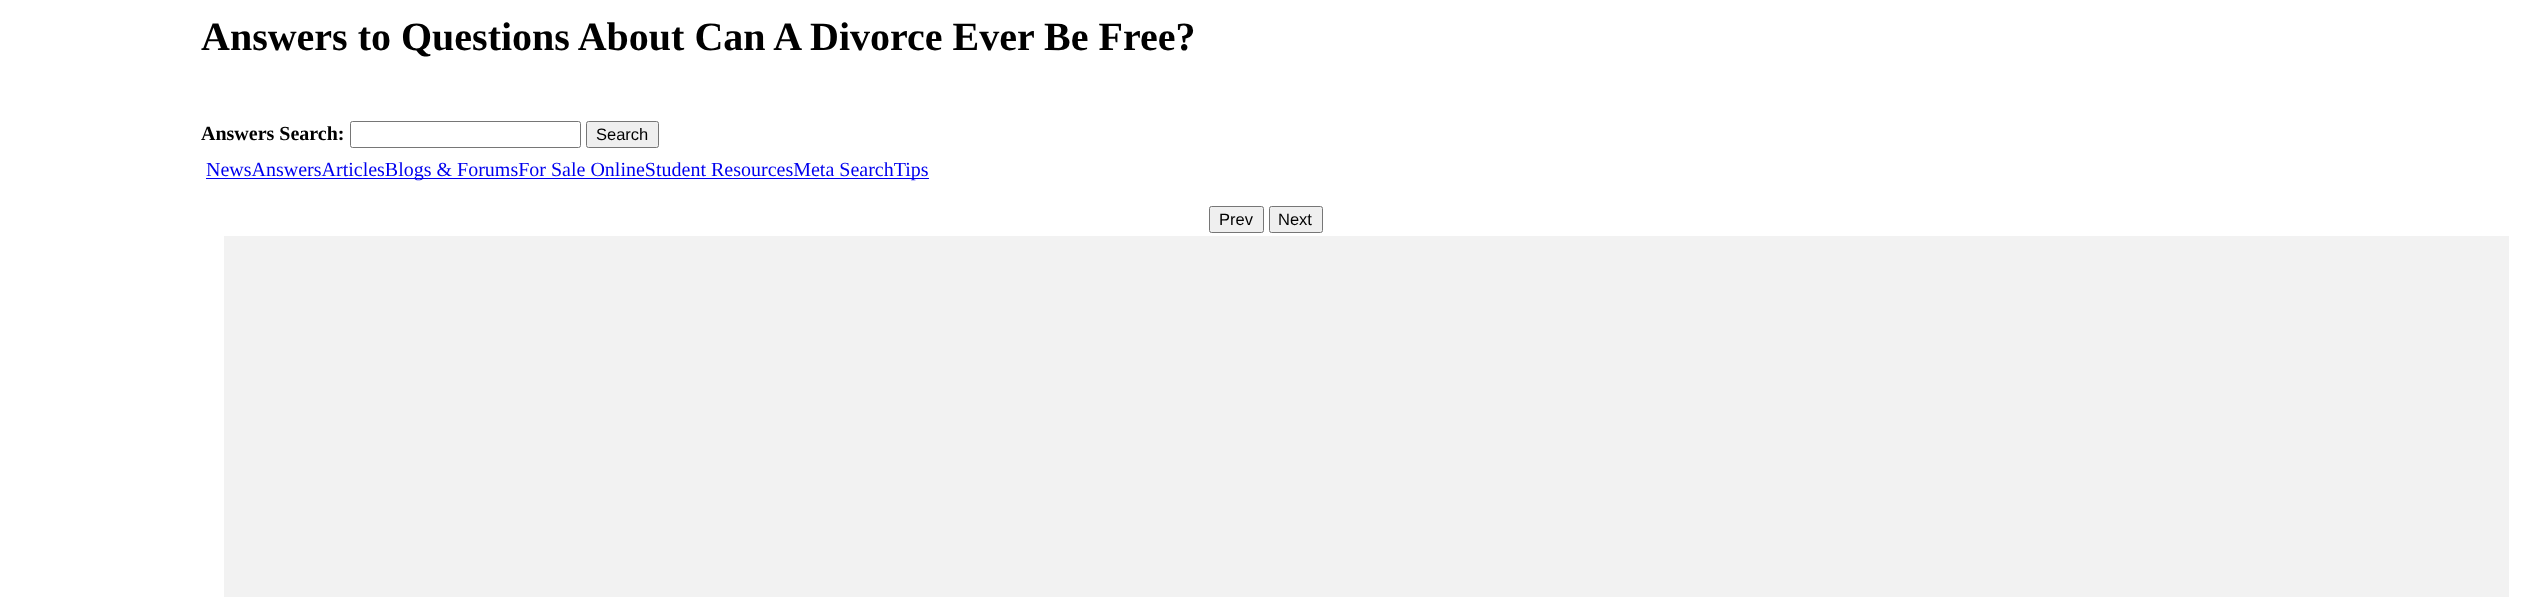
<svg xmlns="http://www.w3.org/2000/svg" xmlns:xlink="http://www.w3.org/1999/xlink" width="2521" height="597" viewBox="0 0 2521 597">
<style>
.cls-1{font:bold 40px Liberation Serif;fill:#000000}
.cls-2{font:bold 20px Liberation Serif;fill:#000000}
.cls-3{font:16.5px Liberation Sans;fill:#000000}
.cls-4{font:20px Liberation Serif;fill:#0000ee}
</style>
<rect width="100%" height="100%" fill="#ffffff"/>
<rect fill="none" stroke="#767676" x="350.5" y="121.5" width="230" height="26" rx="2"/>
<rect fill="#efefef" stroke="#767676" x="586.5" y="121.5" width="72" height="26" rx="2"/>
<rect fill="#0000ee" x="206" y="178" width="723" height="1"/>
<rect fill="#efefef" stroke="#767676" x="1209.5" y="206.5" width="54" height="26" rx="2"/>
<rect fill="#efefef" stroke="#767676" x="1269.5" y="206.5" width="53" height="26" rx="2"/>
<rect fill="#f2f2f2" x="224" y="236" width="2285" height="361"/>
<text class="cls-1" x="201" y="50">Answers to Questions About Can A Divorce Ever Be Free?</text>
<text class="cls-2" x="201" y="140">Answers Search:</text>
<text class="cls-3" x="596" y="140">Search</text>
<text class="cls-4" x="206" y="176">NewsAnswersArticlesBlogs &amp; ForumsFor Sale OnlineStudent ResourcesMeta SearchTips</text>
<text class="cls-3" x="1219" y="225">Prev</text>
<text class="cls-3" x="1278" y="225">Next</text>
</svg>
